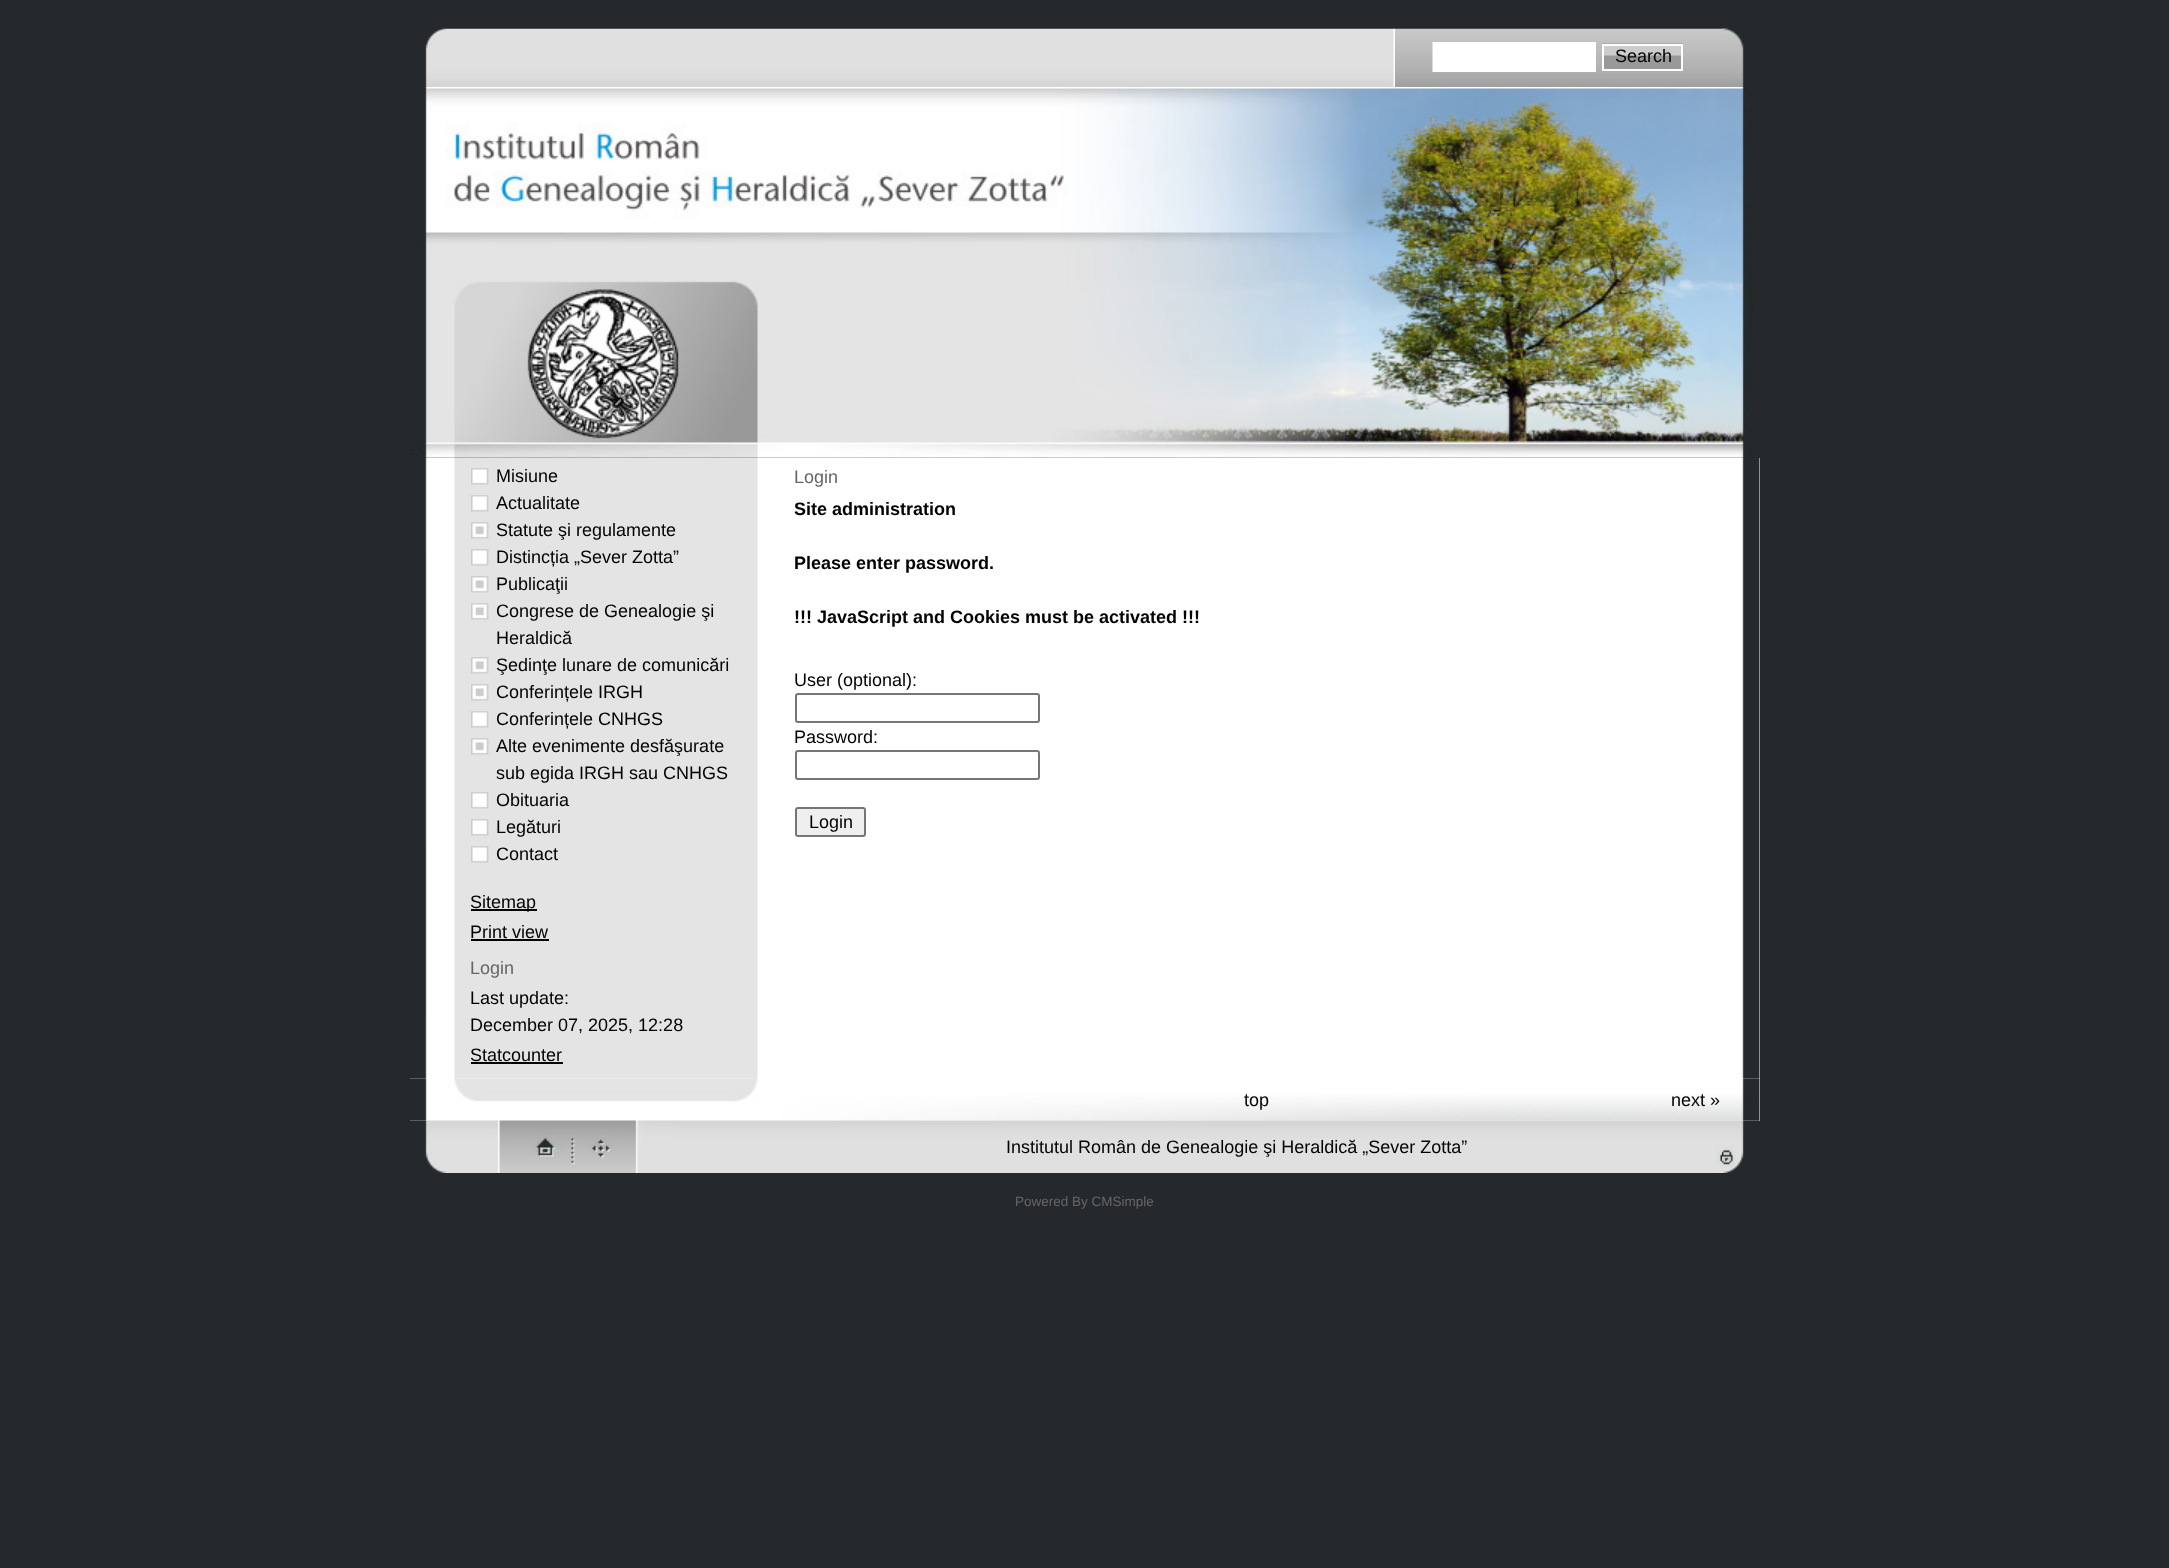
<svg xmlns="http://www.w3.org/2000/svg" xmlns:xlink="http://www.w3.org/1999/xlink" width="2169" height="1568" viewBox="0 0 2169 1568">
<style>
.cls-1{font:18px Liberation Sans;fill:#020202}
.cls-2{font:18px Liberation Sans;fill:#666666}
.cls-3{font:bold 18px Liberation Sans;fill:#020202}
.cls-4{font:13.5px Liberation Sans;fill:#666666}
</style>
<rect width="100%" height="100%" fill="#25292c"/>
<image xlink:href="image0.png" x="425" y="28" width="970" height="59"/>
<image xlink:href="image1.png" x="1395" y="28" width="327" height="59"/>
<rect fill="#24282c" fill-opacity="0.5" x="440" y="28" width="1282" height="1"/>
<rect fill="#ffffff" x="1433" y="42" width="163" height="30"/>
<rect fill="#ffffff" fill-opacity="0.5" x="1432" y="42" width="1" height="30"/>
<image xlink:href="image2.png" x="1602" y="43" width="81" height="26"/>
<rect fill="none" stroke="#ffffff" stroke-width="2" x="1603" y="45" width="79" height="25"/>
<image xlink:href="image3.png" x="1722" y="28" width="22" height="59"/>
<rect fill="#ffffff" x="410" y="458" width="1350" height="663"/>
<image xlink:href="image5.png" x="410" y="457" width="1350" height="622"/>
<image xlink:href="image4.png" x="409" y="87" width="1344" height="371"/>
<image xlink:href="image6.png" x="471" y="468" width="18" height="17"/>
<image xlink:href="image6.png" x="471" y="495" width="18" height="17"/>
<image xlink:href="image7.png" x="471" y="522" width="18" height="17"/>
<image xlink:href="image6.png" x="471" y="549" width="18" height="17"/>
<image xlink:href="image7.png" x="471" y="576" width="18" height="17"/>
<image xlink:href="image7.png" x="471" y="603" width="18" height="17"/>
<image xlink:href="image7.png" x="471" y="657" width="18" height="17"/>
<image xlink:href="image7.png" x="471" y="684" width="18" height="17"/>
<image xlink:href="image6.png" x="471" y="711" width="18" height="17"/>
<image xlink:href="image7.png" x="471" y="738" width="18" height="17"/>
<image xlink:href="image6.png" x="471" y="792" width="18" height="17"/>
<image xlink:href="image6.png" x="471" y="819" width="18" height="17"/>
<image xlink:href="image6.png" x="471" y="846" width="18" height="17"/>
<rect fill="#020202" x="471" y="909" width="66" height="2"/>
<rect fill="#020202" x="471" y="939" width="78" height="2"/>
<rect fill="#020202" x="471" y="1062" width="92" height="2"/>
<rect fill="none" stroke="#767676" stroke-width="2" x="796" y="694" width="243" height="28" rx="2"/>
<rect fill="none" stroke="#767676" stroke-width="2" x="796" y="751" width="243" height="28" rx="2"/>
<rect fill="#efefef" stroke="#767676" stroke-width="2" x="796" y="808" width="69" height="28" rx="2"/>
<image xlink:href="image8.png" x="410" y="1078" width="1350" height="43"/>
<image xlink:href="image9.png" x="410" y="1120" width="343" height="53"/>
<image xlink:href="image10.png" x="753" y="1120" width="969" height="53"/>
<image xlink:href="image11.png" x="1722" y="1120" width="38" height="53"/>
<text class="cls-1" x="1615" y="62">Search</text>
<text class="cls-1"><tspan x="496" y="482">Misiune</tspan><tspan x="496" y="509">Actualitate</tspan><tspan x="496" y="536">Statute şi regulamente</tspan><tspan x="496" y="563">Distincția „Sever Zotta”</tspan><tspan x="496" y="590">Publicaţii</tspan><tspan x="496" y="617">Congrese de Genealogie şi</tspan><tspan x="496" y="644">Heraldică</tspan><tspan x="496" y="671">Şedinţe lunare de comunicări</tspan><tspan x="496" y="698">Conferințele IRGH</tspan><tspan x="496" y="725">Conferințele CNHGS</tspan><tspan x="496" y="752">Alte evenimente desfăşurate</tspan><tspan x="496" y="779">sub egida IRGH sau CNHGS</tspan><tspan x="496" y="806">Obituaria</tspan><tspan x="496" y="833">Legături</tspan><tspan x="496" y="860">Contact</tspan></text>
<text class="cls-1"><tspan x="470" y="908">Sitemap</tspan><tspan x="470" y="938">Print view</tspan></text>
<text class="cls-2" x="470" y="974">Login</text>
<text class="cls-1"><tspan x="470" y="1004">Last update:</tspan><tspan x="470" y="1031">December 07, 2025, 12:28</tspan><tspan x="470" y="1061">Statcounter</tspan></text>
<text class="cls-2" x="794" y="483">Login</text>
<text class="cls-3" x="794" y="515">Site administration</text>
<text class="cls-3" x="794" y="569">Please enter password.</text>
<text class="cls-3" x="794" y="623">!!! JavaScript and Cookies must be activated !!!</text>
<text class="cls-1" x="794" y="686">User (optional):</text>
<text class="cls-1" x="794" y="743">Password:</text>
<text class="cls-1" x="809" y="828">Login</text>
<text class="cls-1" x="1244" y="1106">top</text>
<text class="cls-1" x="1671" y="1106">next »</text>
<text class="cls-1" x="1006" y="1153">Institutul Român de Genealogie şi Heraldică „Sever Zotta”</text>
<text class="cls-4" x="1015" y="1206">Powered By CMSimple</text>
</svg>
